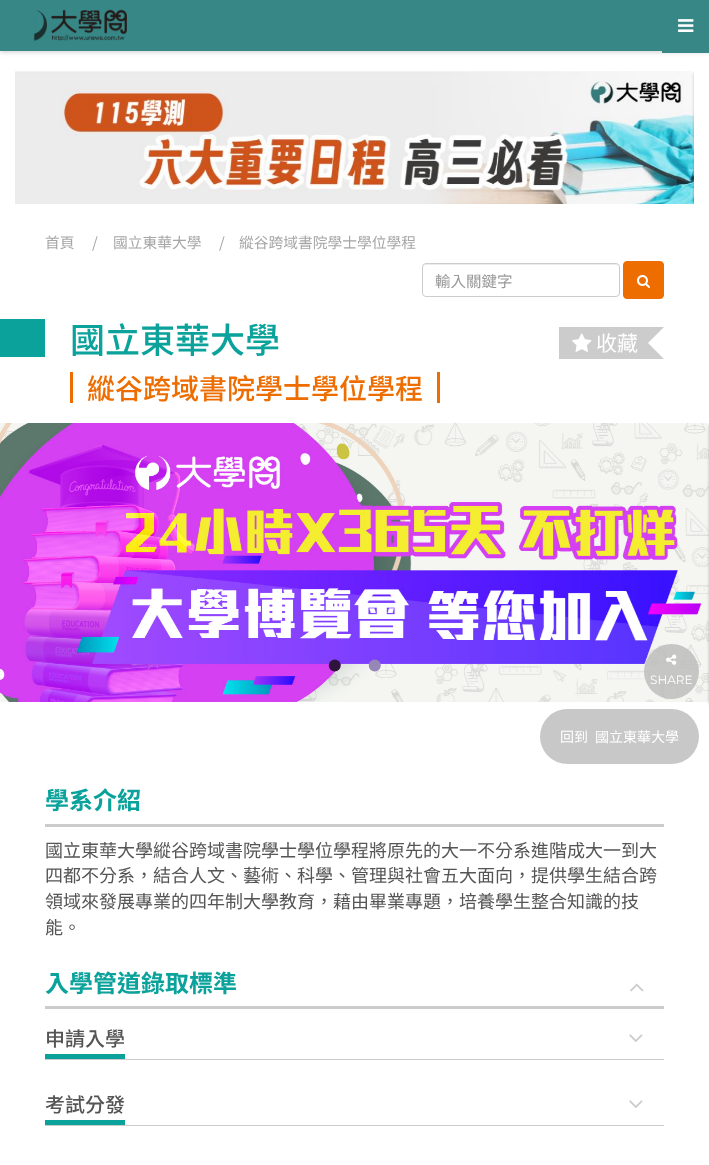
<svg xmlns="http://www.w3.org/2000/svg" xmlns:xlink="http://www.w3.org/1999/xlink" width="709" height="1165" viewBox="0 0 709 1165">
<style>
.cls-1{font:14.75px Noto Sans TC;fill:#a6a6a6}
.cls-2{font:15.5px Noto Sans TC;fill:#999999}
.cls-3{font:500 35px Noto Sans TC;fill:#0ba29b}
.cls-4{font:500 28px Noto Sans TC;fill:#ed6d00}
.cls-5{font:21px Noto Sans TC;fill:#ffffff}
.cls-6{font:50px Liberation Serif;fill:#2e143d}
.cls-7{font:50px Liberation Serif;fill:#9687b7}
.cls-8{font:bold 24px Noto Sans TC;fill:#0ba29b}
.cls-9{font:18px Noto Sans TC;fill:#555555}
.cls-10{font:500 20px Noto Sans TC;fill:#555555}
.cls-11{font:100 12px Montserrat;fill:#ffffff}
.cls-12{font:14px Noto Sans TC;fill:#ffffff}
</style>
<defs>
<clipPath id="clip1"><rect x="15" y="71" width="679" height="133"/></clipPath>
</defs>
<rect width="100%" height="100%" fill="#ffffff"/>
<rect fill="#000000" fill-opacity="0.2" filter="blur(2.5px)" x="0" y="2" width="709" height="50"/>
<rect fill="#388787" x="0" y="0" width="662" height="51"/>
<image xlink:href="image0.png" x="33" y="9" width="94" height="32"/>
<rect fill="#388787" x="662" y="0" width="47" height="53"/>
<image xlink:href="image1.png" x="678" y="19" width="16" height="13"/>
<image xlink:href="image2.png" x="15" y="71" width="679" height="133"/>
<g clip-path="url(#clip1)">
<rect fill="#000000" fill-opacity="0.2" filter="blur(1.5px)" x="694" y="74" width="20" height="133"/>
</g>
<path fill="#ececec" d="M426 265H616C618 265 619 266 619 268C619 266 618 264 616 264H426C424 264 423 266 423 268C423 266 424 265 426 265Z"/>
<rect fill="none" stroke="#cccccc" x="422.5" y="263.5" width="197" height="33" rx="3.5"/>
<rect fill="#ed6d00" stroke="#ed6d00" x="623.5" y="261.5" width="40" height="37" rx="3.5"/>
<image xlink:href="image3.png" x="637" y="275" width="13" height="13"/>
<rect fill="#0ba29b" x="0" y="319" width="45" height="38"/>
<rect fill="#ed6d00" x="437" y="372" width="3" height="31"/>
<rect fill="#ed6d00" x="70" y="372" width="3" height="31"/>
<path fill="#cccccc" d="M559 327H664L648 343L664 359H559Z"/>
<image xlink:href="image4.png" x="572" y="333" width="20" height="19"/>
<image xlink:href="image5.png" x="0" y="423" width="709" height="279"/>
<rect fill="#000000" fill-opacity="0.2" filter="blur(1.5px)" x="709" y="426" width="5" height="278"/>
<rect fill="#cccccc" x="45" y="824" width="619" height="3"/>
<rect fill="#cccccc" x="45" y="1006" width="619" height="3"/>
<image xlink:href="image6.png" x="630" y="983" width="14" height="9"/>
<rect fill="#cccccc" x="45" y="1059" width="619" height="1"/>
<rect fill="#0ba29b" x="45" y="1054" width="80" height="5"/>
<image xlink:href="image7.png" x="629" y="1034" width="14" height="8"/>
<rect fill="#cccccc" x="45" y="1125" width="619" height="1"/>
<rect fill="#0ba29b" x="45" y="1120" width="80" height="5"/>
<image xlink:href="image7.png" x="629" y="1100" width="14" height="8"/>
<circle fill="#bababa" fill-opacity="0.8" cx="671.5" cy="671.5" r="27.5"/>
<image xlink:href="image8.png" x="666" y="654" width="11" height="11"/>
<rect fill="#c8c8c8" x="540" y="709" width="159" height="55" rx="27.5"/>
<text class="cls-1" x="45" y="248">首頁</text>
<text class="cls-1" x="92" y="248">/</text>
<text class="cls-1" x="113" y="248">國立東華大學</text>
<text class="cls-1" x="219" y="248">/</text>
<text class="cls-1" x="239" y="248">縱谷跨域書院學士學位學程</text>
<text class="cls-2" x="435" y="287">輸入關鍵字</text>
<text class="cls-3" x="70" y="353">國立東華大學</text>
<text class="cls-4" x="87" y="399">縱谷跨域書院學士學位學程</text>
<text class="cls-5" x="596" y="351">收藏</text>
<text class="cls-6" x="326" y="682">•</text>
<text class="cls-7" x="366" y="682">•</text>
<text class="cls-8" x="45" y="809">學系介紹</text>
<text class="cls-9"><tspan x="45" y="857">國立東華大學縱谷跨域書院學士學位學程將原先的大一不分系進階成大一到大</tspan><tspan x="45" y="882">四都不分系，結合人文、藝術、科學、管理與社會五大面向，提供學生結合跨</tspan><tspan x="45" y="908">領域來發展專業的四年制大學教育，藉由畢業專題，培養學生整合知識的技</tspan><tspan x="45" y="934">能。</tspan></text>
<text class="cls-8" x="45" y="992">入學管道錄取標準</text>
<text class="cls-10" x="45" y="1046">申請入學</text>
<text class="cls-10" x="45" y="1112">考試分發</text>
<text class="cls-11" x="650" y="684">SHARE</text>
<text class="cls-12" x="560" y="742">回到</text>
<text class="cls-12" x="595" y="742">國立東華大學</text>
</svg>
